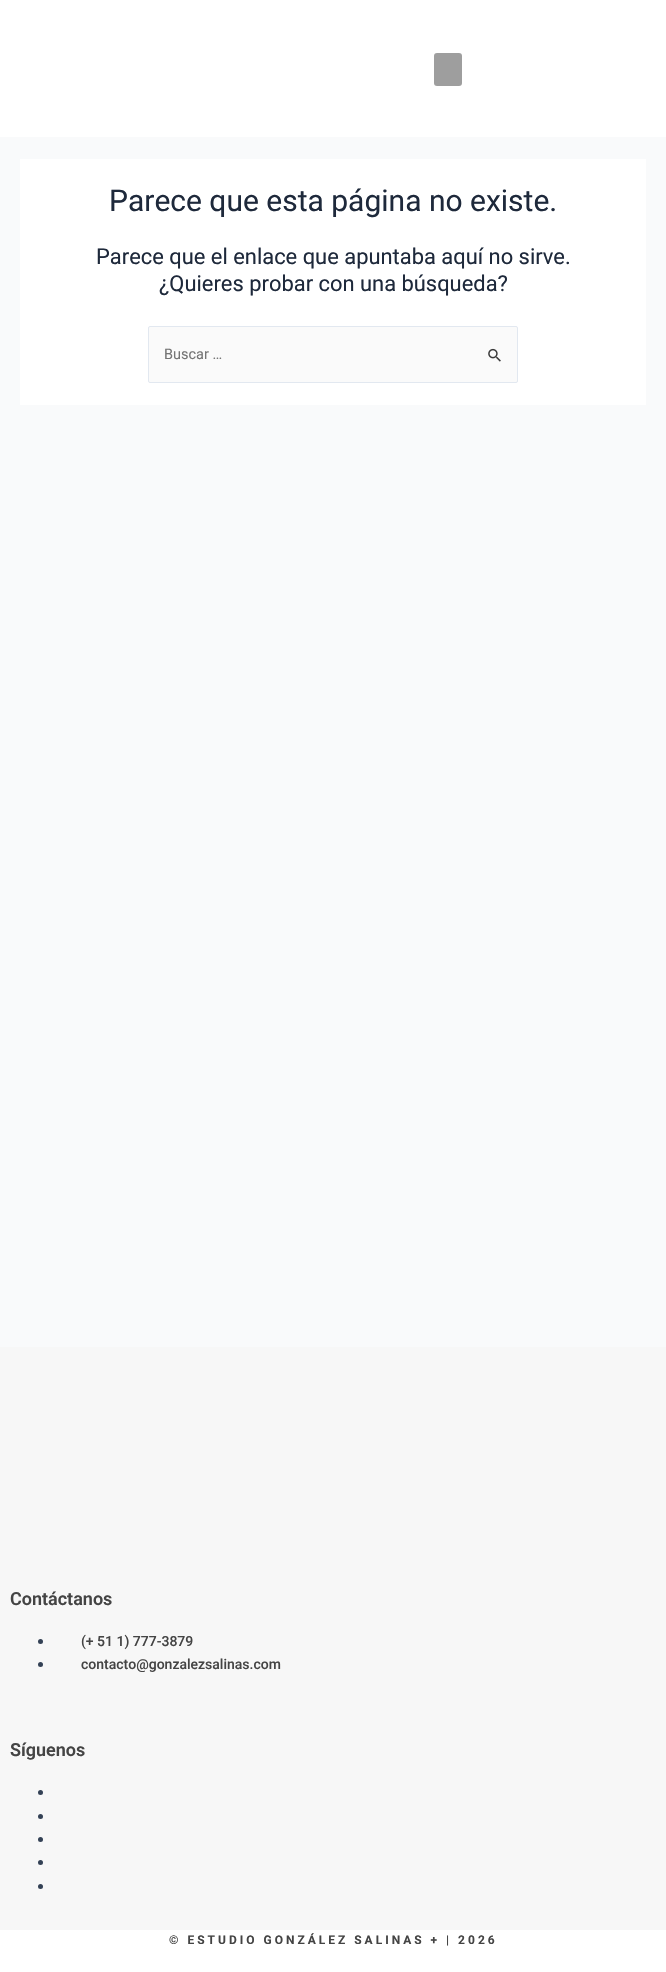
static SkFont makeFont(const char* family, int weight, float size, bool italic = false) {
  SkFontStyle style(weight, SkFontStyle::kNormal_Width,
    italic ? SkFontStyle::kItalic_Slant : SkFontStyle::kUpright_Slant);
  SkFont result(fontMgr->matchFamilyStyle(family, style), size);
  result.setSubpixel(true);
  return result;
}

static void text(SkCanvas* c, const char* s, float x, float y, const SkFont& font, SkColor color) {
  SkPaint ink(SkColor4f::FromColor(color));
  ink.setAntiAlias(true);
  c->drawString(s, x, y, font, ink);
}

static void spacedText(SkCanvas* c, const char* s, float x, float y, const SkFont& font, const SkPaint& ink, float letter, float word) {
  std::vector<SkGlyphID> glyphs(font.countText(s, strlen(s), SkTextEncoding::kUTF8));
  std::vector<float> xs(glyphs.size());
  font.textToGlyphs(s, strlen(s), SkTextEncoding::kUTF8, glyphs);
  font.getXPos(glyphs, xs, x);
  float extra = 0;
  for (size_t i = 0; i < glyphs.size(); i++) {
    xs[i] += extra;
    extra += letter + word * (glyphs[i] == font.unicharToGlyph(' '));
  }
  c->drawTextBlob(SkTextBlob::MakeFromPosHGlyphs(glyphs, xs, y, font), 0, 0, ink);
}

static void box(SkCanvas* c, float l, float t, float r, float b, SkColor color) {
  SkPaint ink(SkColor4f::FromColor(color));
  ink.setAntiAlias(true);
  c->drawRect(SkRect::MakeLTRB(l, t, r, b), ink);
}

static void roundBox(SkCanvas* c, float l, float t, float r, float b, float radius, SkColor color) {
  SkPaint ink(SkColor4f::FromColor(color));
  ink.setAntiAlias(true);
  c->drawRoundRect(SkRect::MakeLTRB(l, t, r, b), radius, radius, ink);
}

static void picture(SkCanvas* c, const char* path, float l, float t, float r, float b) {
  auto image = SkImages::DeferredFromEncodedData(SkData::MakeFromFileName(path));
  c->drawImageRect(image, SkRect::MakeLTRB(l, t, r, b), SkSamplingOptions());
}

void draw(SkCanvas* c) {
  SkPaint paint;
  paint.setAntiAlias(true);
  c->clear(0xfff9fafb);
  box(c, 0, 0, 666, 137, 0xffffffff);
  roundBox(c, 434, 53, 462, 86, 3, 0xff9e9e9e);
  box(c, 20, 159, 646, 405, 0xffffffff);
  SkFont face1 = makeFont("Roboto", 400, 30);
  text(c, "Parece que esta página no existe.", 109, 211, face1, 0xff1e293b);
  SkFont face2 = makeFont("Roboto", 400, 21.9f);
  text(c, "Parece que el enlace que apuntaba aquí no sirve.", 96, 264, face2, 0xff1e293b);
  text(c, "¿Quieres probar con una búsqueda?", 159, 291, face2, 0xff1e293b);
  paint.setColor(0xfffafafa);
  c->drawRoundRect(SkRect::MakeLTRB(148.5f, 326.5f, 517.5f, 382.5f), 1.5f, 1.5f, paint);
  paint.setStyle(SkPaint::kStroke_Style);
  paint.setStrokeWidth(1);
  paint.setColor(0xffe2e8f0);
  c->drawRoundRect(SkRect::MakeLTRB(148.5f, 326.5f, 517.5f, 382.5f), 1.5f, 1.5f, paint);
  SkFont face3 = makeFont("Roboto", 400, 14.5f);
  text(c, "Buscar …", 164, 359, face3, 0xff757575);
  picture(c, "img_01.png", 488, 348, 501, 362);
  box(c, 0, 1347, 666, 1930, 0xfff7f7f7);
  SkFont face4 = makeFont("Roboto", 600, 18);
  text(c, "Contáctanos", 10, 1605, face4, 0xff444444);
  paint.setStyle(SkPaint::kFill_Style);
  paint.setColor(0xff334155);
  c->drawCircle(40.5f, 1641.5f, 2.5f, paint);
  SkFont face5 = makeFont("Roboto", 500, 14);
  text(c, "(+ 51 1) 777-3879", 81, 1646, face5, 0xff444444);
  c->drawCircle(40.5f, 1664.5f, 2.5f, paint);
  text(c, "contacto@gonzalezsalinas.com", 81, 1669, face5, 0xff444444);
  text(c, "Síguenos", 10, 1756, face4, 0xff444444);
  c->drawCircle(40.5f, 1792.5f, 2.5f, paint);
  c->drawCircle(40.5f, 1816.5f, 2.5f, paint);
  c->drawCircle(40.5f, 1839.5f, 2.5f, paint);
  c->drawCircle(40.5f, 1862.5f, 2.5f, paint);
  c->drawCircle(40.5f, 1886.5f, 2.5f, paint);
  box(c, 0, 1930, 666, 1972, 0xffffffff);
  SkFont face6 = makeFont("Roboto", 700, 12);
  paint.setColor(0xff444444);
  spacedText(c, "© ESTUDIO GONZÁLEZ SALINAS + | 2026", 169, 1944, face6, paint, 3, 0);
}
